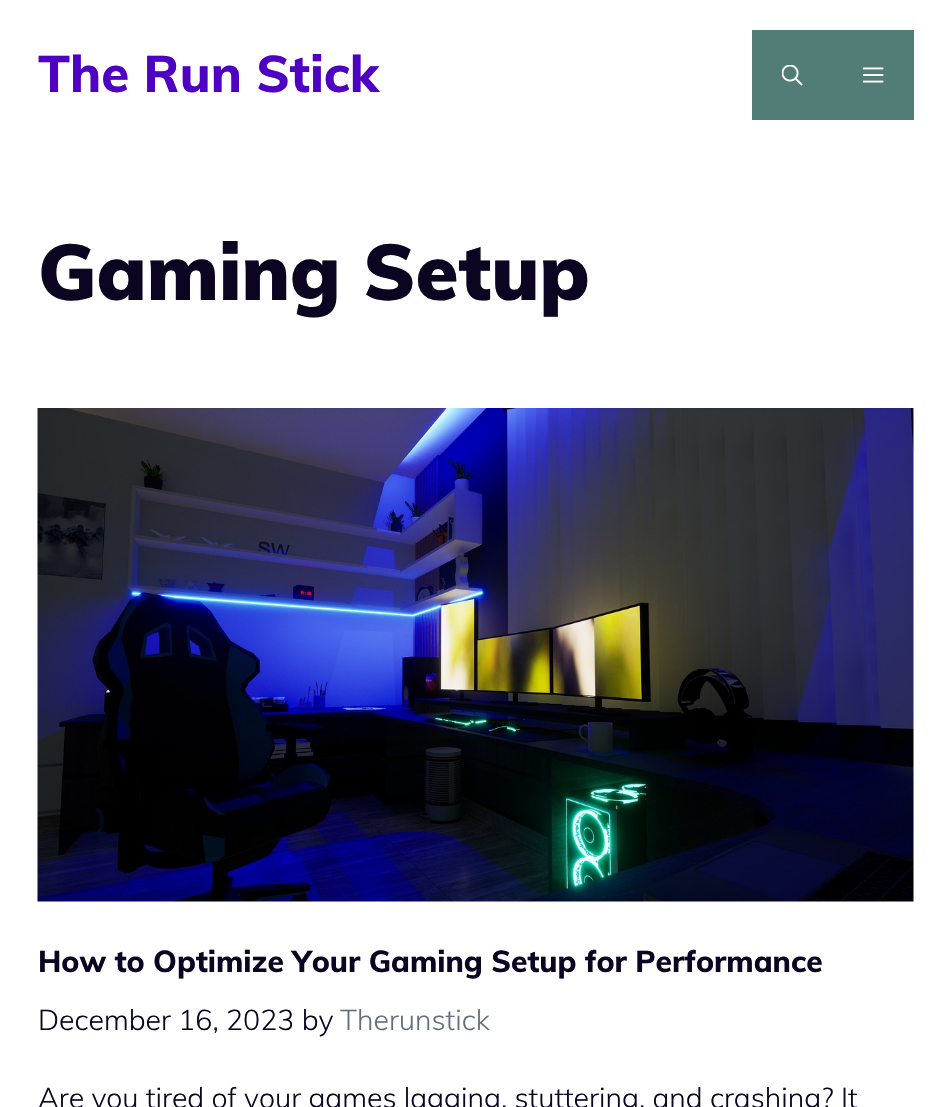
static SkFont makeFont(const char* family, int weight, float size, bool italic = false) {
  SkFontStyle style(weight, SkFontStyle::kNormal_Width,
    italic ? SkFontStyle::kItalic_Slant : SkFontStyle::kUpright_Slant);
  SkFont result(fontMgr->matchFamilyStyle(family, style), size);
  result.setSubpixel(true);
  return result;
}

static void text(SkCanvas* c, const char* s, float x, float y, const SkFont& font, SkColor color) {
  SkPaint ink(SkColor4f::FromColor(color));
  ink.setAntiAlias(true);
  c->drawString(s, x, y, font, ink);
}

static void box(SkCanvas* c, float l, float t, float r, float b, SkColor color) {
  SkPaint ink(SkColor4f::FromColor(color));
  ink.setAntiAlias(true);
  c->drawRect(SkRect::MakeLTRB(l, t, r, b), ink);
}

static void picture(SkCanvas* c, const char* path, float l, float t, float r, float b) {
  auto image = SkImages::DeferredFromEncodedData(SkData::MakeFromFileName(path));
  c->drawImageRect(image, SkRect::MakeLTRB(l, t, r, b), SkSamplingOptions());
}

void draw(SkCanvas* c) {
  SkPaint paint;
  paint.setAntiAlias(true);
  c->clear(0xffffffff);
  SkFont face1 = makeFont("Muli", 800, 51);
  text(c, "The Run Stick", 38, 92, face1, 0xff4e01c2);
  box(c, 752, 30, 914, 120, 0xff527d76);
  picture(c, "img_01.png", 782, 65, 803, 86);
  picture(c, "img_02.png", 863, 67, 884, 83);
  SkFont face2 = makeFont("Muli", 900, 78);
  text(c, "Gaming Setup", 38, 300, face2, 0xff0b0521);
  picture(c, "img_03.png", 37, 408, 914, 902);
  SkFont face3 = makeFont("Muli", 800, 30);
  text(c, "How to Optimize Your Gaming Setup for Performance", 38, 972, face3, 0xff0b0521);
  SkFont face4 = makeFont("Muli", 300, 28.5f);
  text(c, "December 16, 2023 by", 38, 1030, face4, 0xff0b0521);
  text(c, "Therunstick", 340, 1030, face4, 0xff62707c);
  text(c, "Are you tired of your games lagging, stuttering, and crashing? It", 38, 1108, face4, 0xff0b0521);
}
